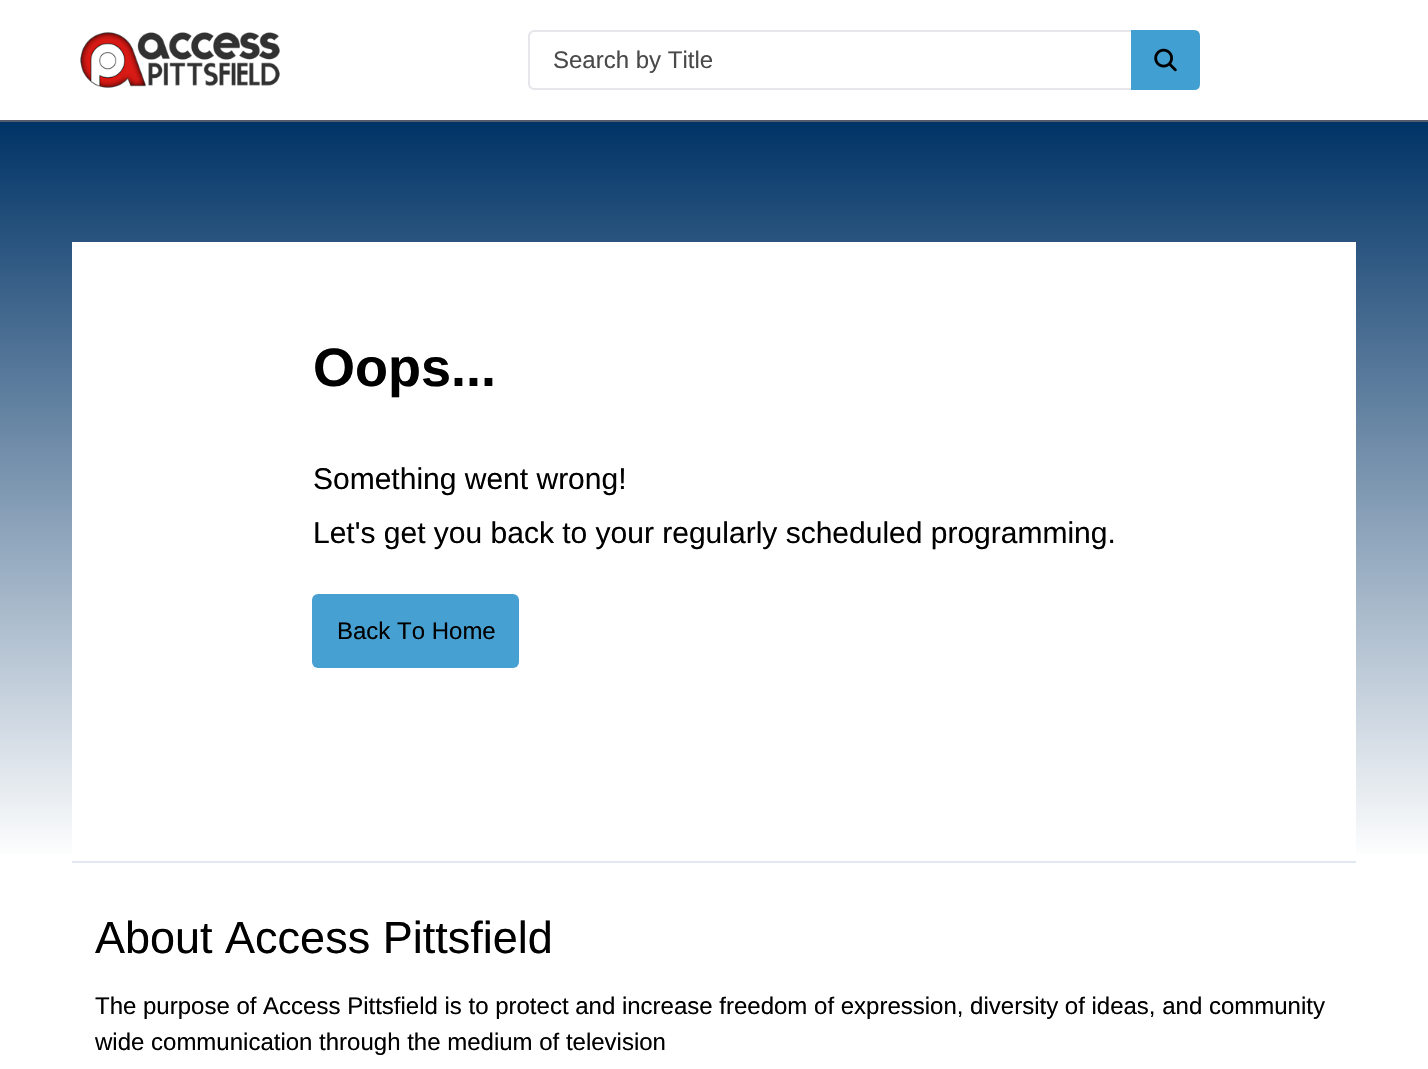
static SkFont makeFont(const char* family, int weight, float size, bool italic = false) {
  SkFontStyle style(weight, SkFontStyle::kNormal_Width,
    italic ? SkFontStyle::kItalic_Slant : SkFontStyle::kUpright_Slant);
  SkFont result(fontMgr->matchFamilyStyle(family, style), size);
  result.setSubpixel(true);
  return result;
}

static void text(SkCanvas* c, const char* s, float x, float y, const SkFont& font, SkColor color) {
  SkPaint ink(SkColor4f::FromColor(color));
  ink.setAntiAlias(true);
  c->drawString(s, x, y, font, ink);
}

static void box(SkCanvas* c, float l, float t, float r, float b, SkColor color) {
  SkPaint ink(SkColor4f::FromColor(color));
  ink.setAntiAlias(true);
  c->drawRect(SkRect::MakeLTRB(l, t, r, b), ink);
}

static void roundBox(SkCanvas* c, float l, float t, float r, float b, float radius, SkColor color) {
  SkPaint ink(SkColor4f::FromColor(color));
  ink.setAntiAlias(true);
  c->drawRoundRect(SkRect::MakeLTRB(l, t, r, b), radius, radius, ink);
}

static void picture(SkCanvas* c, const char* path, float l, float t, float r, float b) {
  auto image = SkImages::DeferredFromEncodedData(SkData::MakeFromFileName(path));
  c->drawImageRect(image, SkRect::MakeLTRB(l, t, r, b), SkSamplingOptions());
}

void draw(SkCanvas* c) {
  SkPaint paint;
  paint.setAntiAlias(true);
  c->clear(0xffffffff);
  box(c, 0, 120, 1428, 122, 0xff545c6e);
  picture(c, "img_01.png", 80, 32, 280, 88);
  paint.setColor(0xffe5e7eb);
  c->drawPath(SkPathBuilder(SkPathFillType::kEvenOdd).moveTo(534, 30).lineTo(1131, 30).lineTo(1131, 90).lineTo(534, 90).cubicTo(531, 90, 528, 87, 528, 84).lineTo(528, 36).cubicTo(528, 33, 531, 30, 534, 30).close().moveTo(534, 32).lineTo(1131, 32).lineTo(1131, 88).lineTo(534, 88).cubicTo(532, 88, 530, 86, 530, 84).lineTo(530, 36).cubicTo(530, 34, 532, 32, 534, 32).close().detach(), paint);
  SkFont face1 = makeFont("Liberation Sans", 400, 24);
  text(c, "Search by Title", 553, 68, face1, 0xff4a4a4a);
  paint.setColor(0xff429fd1);
  c->drawPath(SkPathBuilder().moveTo(1132, 31).lineTo(1194, 31).cubicTo(1197, 31, 1199, 33, 1199, 36).lineTo(1199, 84).cubicTo(1199, 87, 1197, 89, 1194, 89).lineTo(1132, 89).close().detach(), paint);
  paint.setStyle(SkPaint::kStroke_Style);
  paint.setStrokeWidth(2);
  c->drawPath(SkPathBuilder().moveTo(1132, 31).lineTo(1194, 31).cubicTo(1197, 31, 1199, 33, 1199, 36).lineTo(1199, 84).cubicTo(1199, 87, 1197, 89, 1194, 89).lineTo(1132, 89).close().detach(), paint);
  picture(c, "img_02.png", 1154, 48, 1177, 72);
  paint.setStyle(SkPaint::kFill_Style);
  {
    const SkColor colors[] = {0xff003366, 0xffffffff};
    const float stops[] = {0, 1};
    const SkPoint ends[] = {{714, 121}, {714, 861}};
    paint.setShader(SkGradientShader::MakeLinear(ends, colors, stops, 2, SkTileMode::kClamp));
    paint.setAlpha(255);
  }
  c->drawRect(SkRect::MakeLTRB(0, 122, 1428, 854), paint);
  box(c, 72, 242, 1356, 854, 0xffffffff);
  SkFont face2 = makeFont("Liberation Sans", 700, 54);
  text(c, "Oops...", 313, 386, face2, 0xff000000);
  SkFont face3 = makeFont("Liberation Sans", 400, 30);
  text(c, "Something went wrong!", 313, 489, face3, 0xff000000);
  text(c, "Let's get you back to your regularly scheduled programming.", 313, 543, face3, 0xff000000);
  roundBox(c, 312, 594, 519, 668, 6, 0xff46a1d2);
  text(c, "Back To Home", 337, 639, face1, 0xff000000);
  box(c, 72, 861, 1356, 863, 0xffe2e8f0);
  SkFont face4 = makeFont("Liberation Sans", 400, 45);
  text(c, "About Access Pittsfield", 95, 953, face4, 0xff000000);
  text(c, "The purpose of Access Pittsfield is to protect and increase freedom of expression, diversity of ideas, and community", 95, 1014, face1, 0xff000000);
  text(c, "wide communication through the medium of television", 95, 1050, face1, 0xff000000);
}
